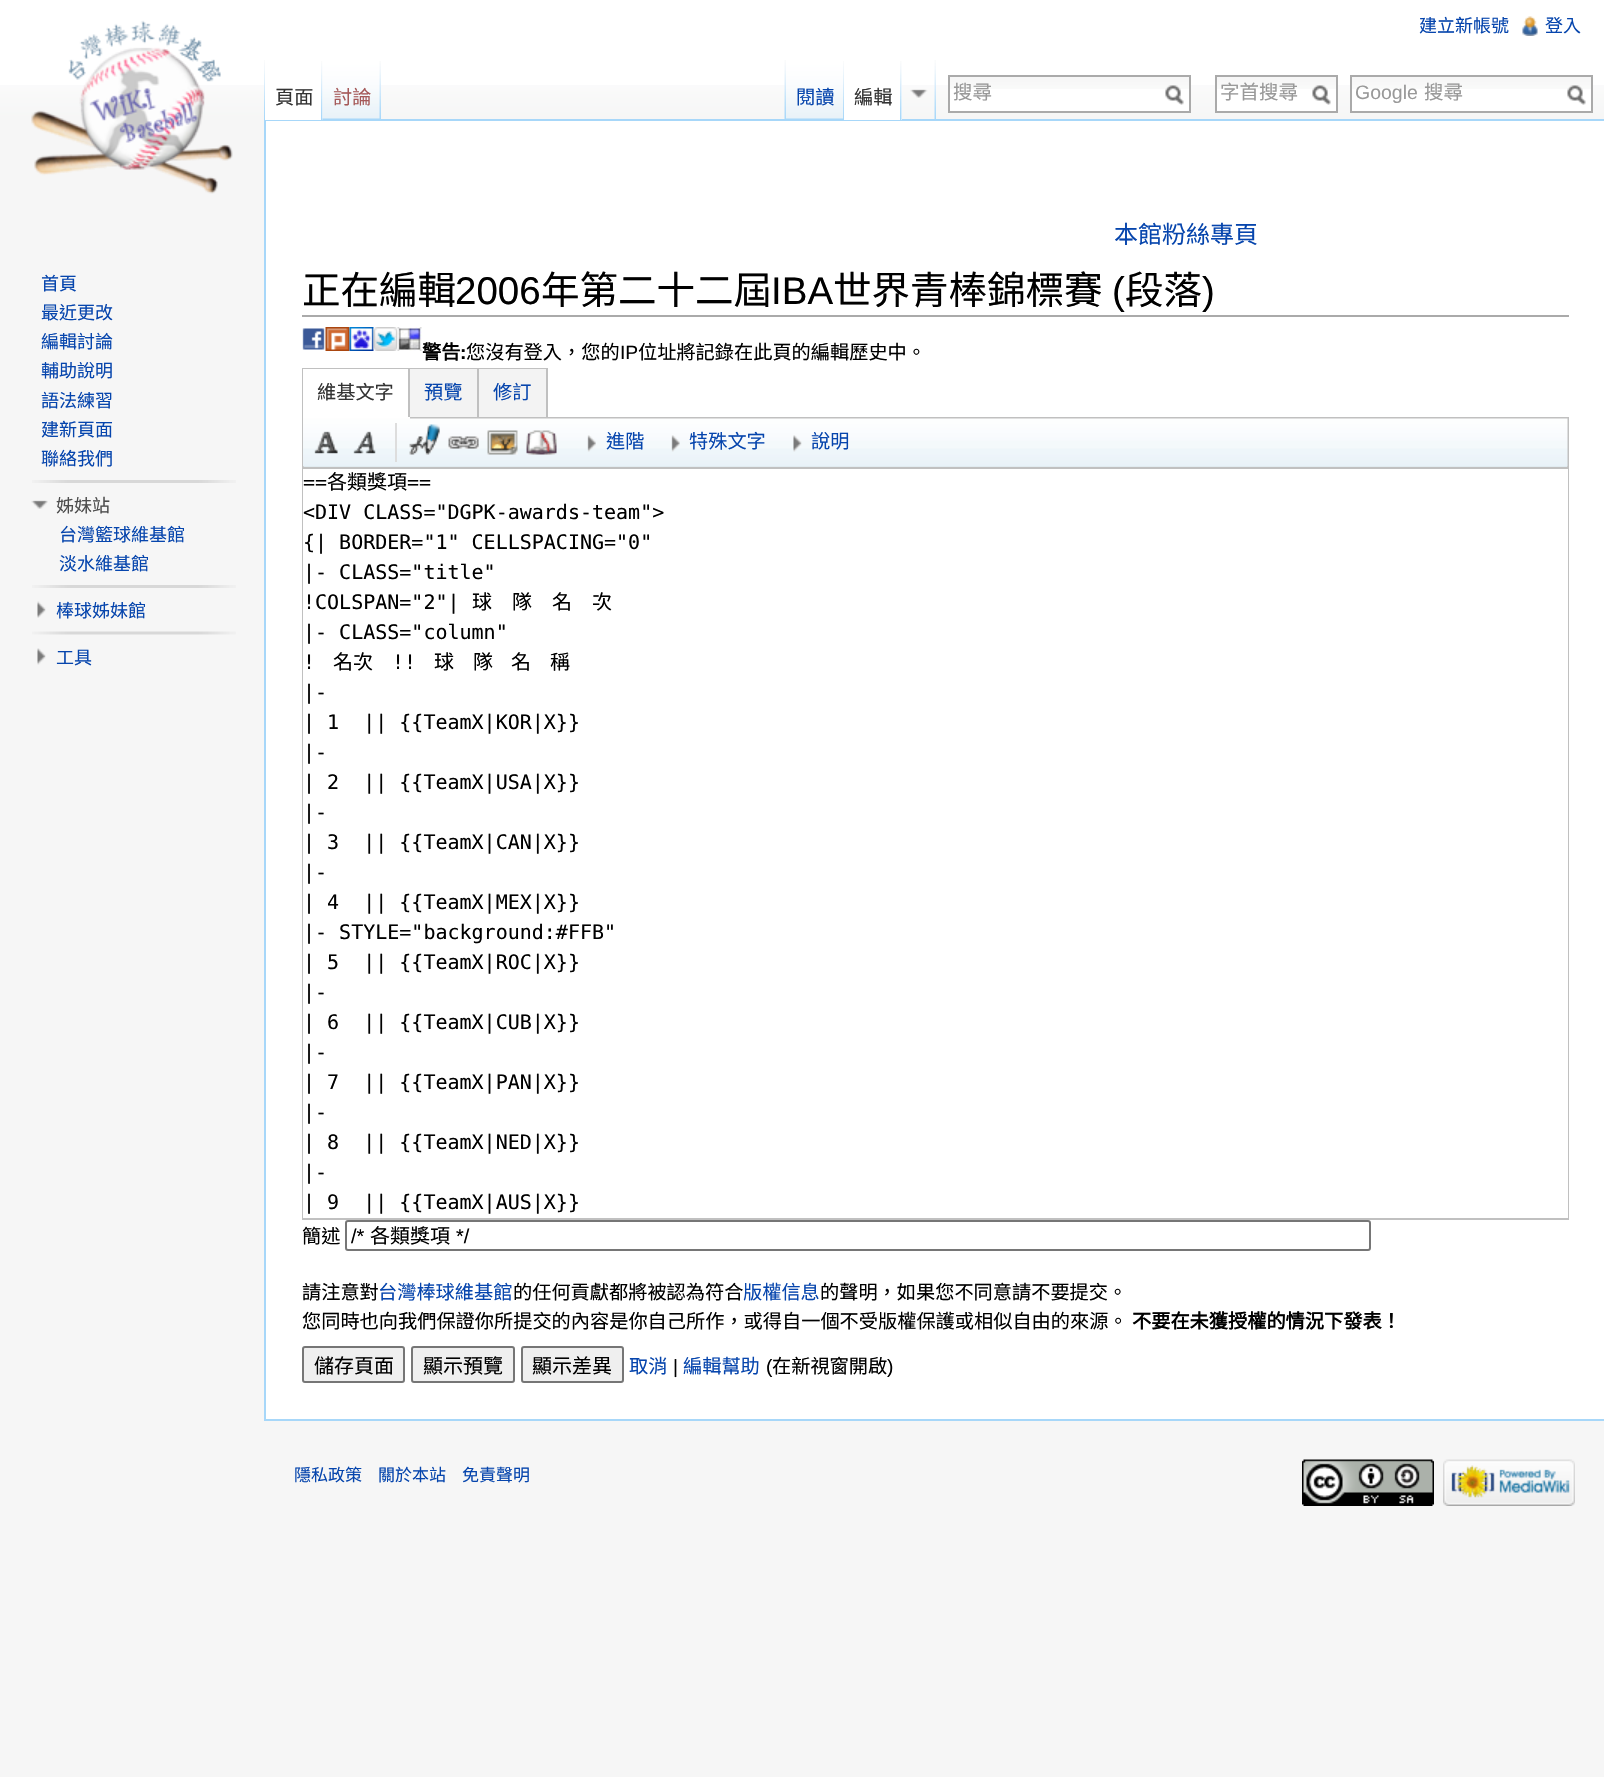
static SkFont makeFont(const char* family, int weight, float size, bool italic = false) {
  SkFontStyle style(weight, SkFontStyle::kNormal_Width,
    italic ? SkFontStyle::kItalic_Slant : SkFontStyle::kUpright_Slant);
  SkFont result(fontMgr->matchFamilyStyle(family, style), size);
  result.setSubpixel(true);
  return result;
}

static void text(SkCanvas* c, const char* s, float x, float y, const SkFont& font, SkColor color) {
  SkPaint ink(SkColor4f::FromColor(color));
  ink.setAntiAlias(true);
  c->drawString(s, x, y, font, ink);
}

static void box(SkCanvas* c, float l, float t, float r, float b, SkColor color) {
  SkPaint ink(SkColor4f::FromColor(color));
  ink.setAntiAlias(true);
  c->drawRect(SkRect::MakeLTRB(l, t, r, b), ink);
}

static void picture(SkCanvas* c, const char* path, float l, float t, float r, float b) {
  auto image = SkImages::DeferredFromEncodedData(SkData::MakeFromFileName(path));
  c->drawImageRect(image, SkRect::MakeLTRB(l, t, r, b), SkSamplingOptions());
}

void draw(SkCanvas* c) {
  SkPaint paint;
  paint.setAntiAlias(true);
  c->clear(0xfff6f6f6);
  box(c, 0, 0, 1604, 85, 0xffffffff);
  picture(c, "img_01.png", 0, 85, 1604, 120);
  SkFont face1 = makeFont("Noto Sans CJK TC", 400, 18);
  text(c, "建立新帳號", 1419, 32, face1, 0xff0645ad);
  picture(c, "img_02.png", 1522, 16, 1538, 36);
  text(c, "登入", 1545, 32, face1, 0xff0645ad);
  picture(c, "img_03.png", 264, 60, 265, 119);
  box(c, 264, 119, 1604, 121, 0xffa7d7f9);
  box(c, 264, 1419, 1604, 1421, 0xffa7d7f9);
  box(c, 264, 119, 266, 1421, 0xffa7d7f9);
  box(c, 265, 85, 323, 120, 0xffffffff);
  picture(c, "img_04.png", 321, 61, 323, 120);
  SkFont face2 = makeFont("Noto Sans CJK TC", 400, 19.2f);
  text(c, "頁面", 275, 104, face2, 0xff333333);
  picture(c, "img_05.png", 322, 60, 381, 120);
  picture(c, "img_06.png", 379, 61, 381, 119);
  text(c, "討論", 333, 104, face2, 0xffa55858);
  picture(c, "img_07.png", 784, 60, 786, 119);
  picture(c, "img_08.png", 786, 60, 844, 120);
  picture(c, "img_09.png", 843, 61, 844, 120);
  text(c, "閱讀", 796, 104, face2, 0xff0645ad);
  box(c, 844, 85, 902, 120, 0xffffffff);
  picture(c, "img_04.png", 900, 61, 902, 120);
  text(c, "編輯", 854, 104, face2, 0xff333333);
  picture(c, "img_10.png", 910, 89, 928, 98);
  picture(c, "img_11.png", 934, 60, 936, 119);
  box(c, 950, 89, 1189, 111, 0xffffffff);
  picture(c, "img_12.png", 950, 77, 1189, 89);
  paint.setStyle(SkPaint::kStroke_Style);
  paint.setStrokeWidth(2);
  paint.setColor(0xffaaaaaa);
  c->drawRect(SkRect::MakeLTRB(949, 76, 1190, 112), paint);
  SkFont face3 = makeFont("Noto Sans CJK TC", 400, 19.5f);
  text(c, "搜尋", 953, 99, face3, 0xff999999);
  picture(c, "img_13.png", 1165, 85, 1184, 105);
  box(c, 1217, 89, 1336, 111, 0xffffffff);
  picture(c, "img_14.png", 1217, 77, 1336, 89);
  c->drawRect(SkRect::MakeLTRB(1216, 76, 1337, 112), paint);
  text(c, "字首搜尋", 1220, 99, face3, 0xff999999);
  picture(c, "img_13.png", 1312, 85, 1331, 105);
  box(c, 1352, 89, 1591, 111, 0xffffffff);
  picture(c, "img_12.png", 1352, 77, 1591, 89);
  c->drawRect(SkRect::MakeLTRB(1351, 76, 1592, 112), paint);
  SkFont face4 = makeFont("Liberation Sans", 400, 19.5f);
  text(c, "Google", 1355, 99, face4, 0xff999999);
  text(c, "搜尋", 1424, 99, face3, 0xff999999);
  picture(c, "img_15.png", 1567, 85, 1586, 105);
  picture(c, "img_16.png", 31, 20, 233, 194);
  text(c, "首頁", 41, 290, face1, 0xff0645ad);
  text(c, "最近更改", 41, 319, face1, 0xff0645ad);
  text(c, "編輯討論", 41, 348, face1, 0xff0645ad);
  text(c, "輔助說明", 41, 377, face1, 0xff0645ad);
  text(c, "語法練習", 41, 407, face1, 0xff0645ad);
  text(c, "建新頁面", 41, 436, face1, 0xff0645ad);
  text(c, "聯絡我們", 41, 465, face1, 0xff0645ad);
  picture(c, "img_17.png", 32, 480, 236, 483);
  picture(c, "img_18.png", 31, 500, 48, 509);
  text(c, "姊妹站", 56, 512, face1, 0xff4d4d4d);
  text(c, "台灣籃球維基館", 59, 541, face1, 0xff0645ad);
  text(c, "淡水維基館", 59, 570, face1, 0xff0645ad);
  picture(c, "img_17.png", 32, 585, 236, 588);
  picture(c, "img_19.png", 37, 601, 46, 618);
  text(c, "棒球姊妹館", 56, 617, face1, 0xff0645ad);
  picture(c, "img_20.png", 32, 631, 236, 635);
  picture(c, "img_21.png", 37, 648, 46, 665);
  text(c, "工具", 56, 664, face1, 0xff0645ad);
  box(c, 266, 121, 1604, 1419, 0xffffffff);
  SkFont face5 = makeFont("Noto Sans CJK TC", 400, 24);
  text(c, "本館粉絲專頁", 1114, 243, face5, 0xff0645ad);
  box(c, 302, 315, 1569, 317, 0xffaaaaaa);
  SkFont face6 = makeFont("Noto Sans CJK TC", 400, 38.5f);
  text(c, "正在編輯", 302, 304, face6, 0xff000000);
  SkFont face7 = makeFont("Liberation Sans", 400, 38.5f);
  text(c, "2006", 455, 304, face7, 0xff000000);
  text(c, "年第二十二屆", 541, 304, face6, 0xff000000);
  text(c, "IBA", 771, 304, face7, 0xff000000);
  text(c, "世界青棒錦標賽", 833, 304, face6, 0xff000000);
  text(c, "(", 1112, 304, face7, 0xff000000);
  text(c, "段落", 1125, 304, face6, 0xff000000);
  text(c, ")", 1202, 304, face7, 0xff000000);
  picture(c, "img_22.png", 302, 328, 325, 350);
  picture(c, "img_23.png", 325, 327, 350, 351);
  picture(c, "img_24.png", 349, 327, 374, 351);
  picture(c, "img_25.png", 373, 327, 398, 351);
  picture(c, "img_26.png", 397, 327, 422, 351);
  SkFont face8 = makeFont("Noto Sans CJK TC", 700, 19.2f);
  text(c, "警告", 422, 359, face8, 0xff000000);
  SkFont face9 = makeFont("Liberation Sans", 700, 19.2f);
  text(c, ":", 460, 359, face9, 0xff000000);
  text(c, "您沒有登入，您的", 466, 359, face2, 0xff000000);
  SkFont face10 = makeFont("Liberation Sans", 400, 19.2f);
  text(c, "IP", 620, 359, face10, 0xff000000);
  text(c, "位址將記錄在此頁的編輯歷史中。", 638, 359, face2, 0xff000000);
  box(c, 304, 466, 1567, 467, 0xffe0eef7);
  paint.setColor(0xffc0c0c0);
  c->drawRect(SkRect::MakeLTRB(303, 369, 1568, 1219), paint);
  box(c, 548, 368, 1550, 370, 0xffffffff);
  box(c, 548, 417, 1568, 419, 0xffc0c0c0);
  box(c, 303, 369, 408, 417, 0xffffffff);
  box(c, 408, 369, 410, 419, 0xffc0c0c0);
  box(c, 303, 417, 410, 419, 0xffffffff);
  text(c, "維基文字", 317, 399, face2, 0xff333333);
  box(c, 410, 369, 477, 417, 0xfff3f3f3);
  box(c, 477, 369, 479, 419, 0xffc0c0c0);
  box(c, 410, 417, 479, 419, 0xffc0c0c0);
  text(c, "預覽", 424, 399, face2, 0xff0645ad);
  box(c, 479, 369, 546, 417, 0xfff3f3f3);
  box(c, 546, 369, 548, 419, 0xffc0c0c0);
  box(c, 479, 417, 548, 419, 0xffc0c0c0);
  text(c, "修訂", 493, 399, face2, 0xff0645ad);
  box(c, 1550, 368, 1569, 417, 0xffffffff);
  box(c, 303, 467, 1568, 469, 0xffc0c0c0);
  picture(c, "img_27.png", 303, 418, 1568, 467);
  box(c, 395, 423, 397, 462, 0xffdddddd);
  picture(c, "img_28.png", 314, 431, 338, 454);
  picture(c, "img_29.png", 353, 431, 376, 454);
  picture(c, "img_30.png", 409, 424, 440, 455);
  picture(c, "img_31.png", 448, 436, 479, 449);
  picture(c, "img_32.png", 487, 430, 518, 455);
  picture(c, "img_33.png", 526, 430, 557, 455);
  picture(c, "img_34.png", 587, 435, 596, 452);
  text(c, "進階", 606, 448, face2, 0xff0645ad);
  picture(c, "img_35.png", 671, 435, 680, 452);
  text(c, "特殊文字", 689, 448, face2, 0xff0645ad);
  picture(c, "img_36.png", 793, 435, 802, 452);
  text(c, "說明", 811, 448, face2, 0xff0645ad);
  box(c, 303, 469, 1568, 1218, 0xffffffff);
  SkFont face11 = makeFont("DejaVu Sans Mono", 400, 20);
  text(c, "==", 303, 489, face11, 0xff000000);
  SkFont face12 = makeFont("Noto Sans CJK TC", 400, 20);
  text(c, "各類獎項", 327, 489, face12, 0xff000000);
  text(c, "==", 407, 489, face11, 0xff000000);
  text(c, "<DIV CLASS=\"DGPK-awards-team\">", 303, 519, face11, 0xff000000);
  text(c, "{| BORDER=\"1\" CELLSPACING=\"0\"", 303, 549, face11, 0xff000000);
  text(c, "|- CLASS=\"title\"", 303, 579, face11, 0xff000000);
  text(c, "!COLSPAN=\"2\"|", 303, 609, face11, 0xff000000);
  text(c, "球　隊　名　次", 472, 609, face12, 0xff000000);
  text(c, "|- CLASS=\"column\"", 303, 639, face11, 0xff000000);
  text(c, "!", 303, 669, face11, 0xff000000);
  text(c, "名次", 333, 669, face12, 0xff000000);
  text(c, "!!", 392, 669, face11, 0xff000000);
  text(c, "球", 434, 669, face12, 0xff000000);
  text(c, "隊", 473, 669, face12, 0xff000000);
  text(c, "名", 511, 669, face12, 0xff000000);
  text(c, "稱", 550, 669, face12, 0xff000000);
  text(c, "|-", 303, 699, face11, 0xff000000);
  text(c, "| 1  || {{TeamX|KOR|X}}", 303, 729, face11, 0xff000000);
  text(c, "|-", 303, 759, face11, 0xff000000);
  text(c, "| 2  || {{TeamX|USA|X}}", 303, 789, face11, 0xff000000);
  text(c, "|-", 303, 819, face11, 0xff000000);
  text(c, "| 3  || {{TeamX|CAN|X}}", 303, 849, face11, 0xff000000);
  text(c, "|-", 303, 879, face11, 0xff000000);
  text(c, "| 4  || {{TeamX|MEX|X}}", 303, 909, face11, 0xff000000);
  text(c, "|- STYLE=\"background:#FFB\"", 303, 939, face11, 0xff000000);
  text(c, "| 5  || {{TeamX|ROC|X}}", 303, 969, face11, 0xff000000);
  text(c, "|-", 303, 999, face11, 0xff000000);
  text(c, "| 6  || {{TeamX|CUB|X}}", 303, 1029, face11, 0xff000000);
  text(c, "|-", 303, 1059, face11, 0xff000000);
  text(c, "| 7  || {{TeamX|PAN|X}}", 303, 1089, face11, 0xff000000);
  text(c, "|-", 303, 1119, face11, 0xff000000);
  text(c, "| 8  || {{TeamX|NED|X}}", 303, 1149, face11, 0xff000000);
  text(c, "|-", 303, 1179, face11, 0xff000000);
  text(c, "| 9  || {{TeamX|AUS|X}}", 303, 1209, face11, 0xff000000);
  text(c, "簡述", 302, 1243, face2, 0xff000000);
  paint.setColor(0xff767676);
  c->drawRoundRect(SkRect::MakeLTRB(346, 1221, 1370, 1250), 2, 2, paint);
  SkFont face13 = makeFont("Liberation Sans", 400, 20);
  text(c, "/*", 351, 1243, face13, 0xff000000);
  text(c, "各類獎項", 370, 1243, face12, 0xff000000);
  text(c, "*/", 456, 1243, face13, 0xff000000);
  text(c, "請注意對", 302, 1299, face2, 0xff000000);
  text(c, "台灣棒球維基館", 378, 1299, face2, 0xff0645ad);
  text(c, "的任何貢獻都將被認為符合", 513, 1299, face2, 0xff000000);
  text(c, "版權信息", 743, 1299, face2, 0xff0645ad);
  text(c, "的聲明，如果您不同意請不要提交。", 820, 1299, face2, 0xff000000);
  text(c, "您同時也向我們保證你所提交的內容是你自己所作，或得自一個不受版權保護或相似自由的來源。", 302, 1328, face2, 0xff000000);
  text(c, "不要在未獲授權的情況下發表！", 1132, 1328, face8, 0xff000000);
  paint.setStyle(SkPaint::kFill_Style);
  paint.setColor(0xffefefef);
  c->drawRoundRect(SkRect::MakeLTRB(303, 1347, 404, 1382), 2, 2, paint);
  paint.setStyle(SkPaint::kStroke_Style);
  paint.setColor(0xff767676);
  c->drawRoundRect(SkRect::MakeLTRB(303, 1347, 404, 1382), 2, 2, paint);
  text(c, "儲存頁面", 314, 1373, face12, 0xff000000);
  paint.setStyle(SkPaint::kFill_Style);
  paint.setColor(0xffefefef);
  c->drawRoundRect(SkRect::MakeLTRB(412, 1347, 514, 1382), 2, 2, paint);
  paint.setStyle(SkPaint::kStroke_Style);
  paint.setColor(0xff767676);
  c->drawRoundRect(SkRect::MakeLTRB(412, 1347, 514, 1382), 2, 2, paint);
  text(c, "顯示預覽", 423, 1373, face12, 0xff000000);
  paint.setStyle(SkPaint::kFill_Style);
  paint.setColor(0xffefefef);
  c->drawRoundRect(SkRect::MakeLTRB(522, 1347, 623, 1382), 2, 2, paint);
  paint.setStyle(SkPaint::kStroke_Style);
  paint.setColor(0xff767676);
  c->drawRoundRect(SkRect::MakeLTRB(522, 1347, 623, 1382), 2, 2, paint);
  text(c, "顯示差異", 532, 1373, face12, 0xff000000);
  text(c, "取消", 629, 1373, face2, 0xff0645ad);
  text(c, "|", 673, 1373, face10, 0xff000000);
  text(c, "編輯幫助", 683, 1373, face2, 0xff0645ad);
  text(c, "(", 766, 1373, face10, 0xff000000);
  text(c, "在新視窗開啟", 772, 1373, face2, 0xff000000);
  text(c, ")", 887, 1373, face10, 0xff000000);
  SkFont face14 = makeFont("Noto Sans CJK TC", 400, 17);
  text(c, "隱私政策", 294, 1481, face14, 0xff0645ad);
  text(c, "關於本站", 378, 1481, face14, 0xff0645ad);
  text(c, "免責聲明", 462, 1481, face14, 0xff0645ad);
  picture(c, "img_37.png", 1302, 1459, 1434, 1506);
  picture(c, "img_38.png", 1443, 1459, 1575, 1506);
}
